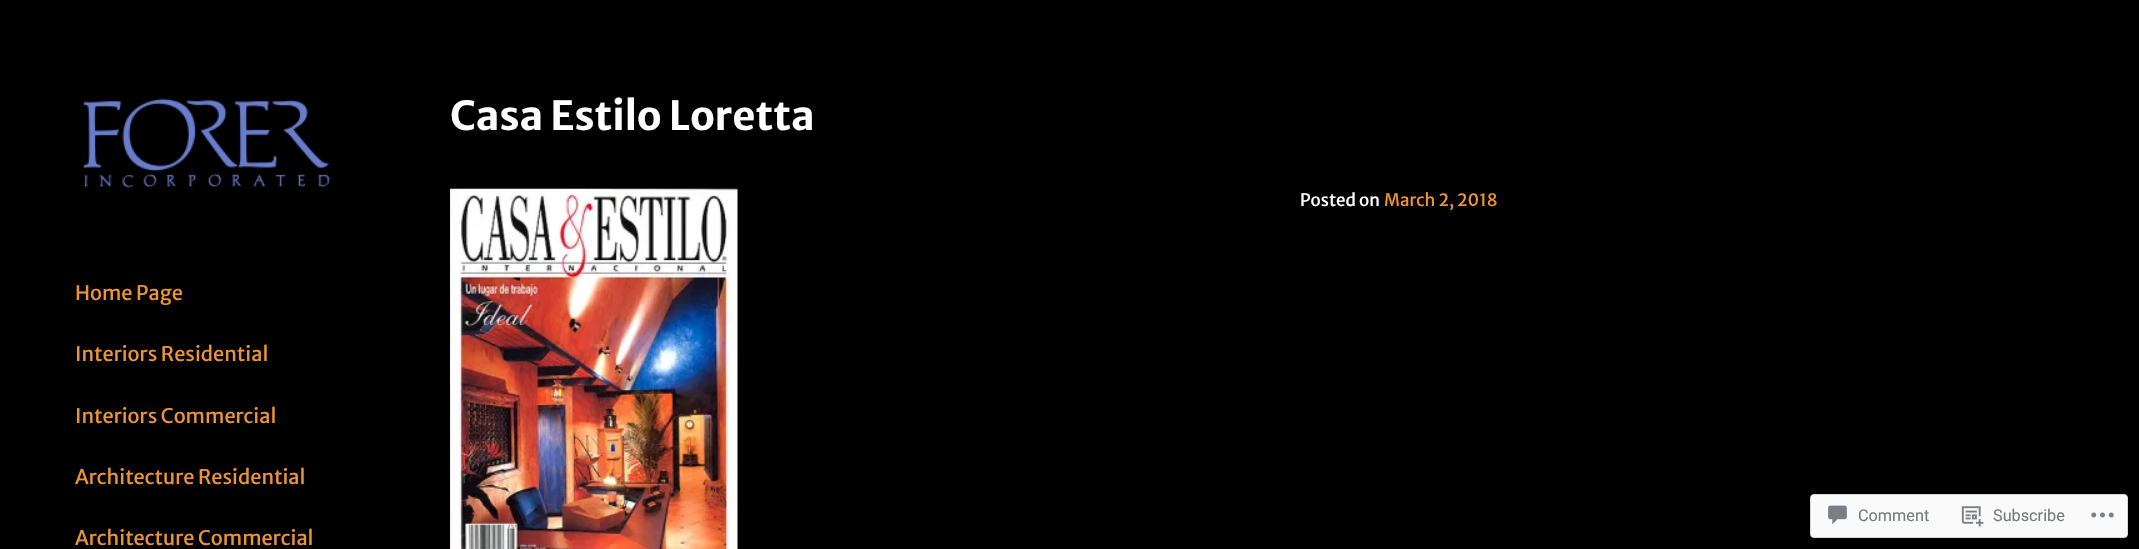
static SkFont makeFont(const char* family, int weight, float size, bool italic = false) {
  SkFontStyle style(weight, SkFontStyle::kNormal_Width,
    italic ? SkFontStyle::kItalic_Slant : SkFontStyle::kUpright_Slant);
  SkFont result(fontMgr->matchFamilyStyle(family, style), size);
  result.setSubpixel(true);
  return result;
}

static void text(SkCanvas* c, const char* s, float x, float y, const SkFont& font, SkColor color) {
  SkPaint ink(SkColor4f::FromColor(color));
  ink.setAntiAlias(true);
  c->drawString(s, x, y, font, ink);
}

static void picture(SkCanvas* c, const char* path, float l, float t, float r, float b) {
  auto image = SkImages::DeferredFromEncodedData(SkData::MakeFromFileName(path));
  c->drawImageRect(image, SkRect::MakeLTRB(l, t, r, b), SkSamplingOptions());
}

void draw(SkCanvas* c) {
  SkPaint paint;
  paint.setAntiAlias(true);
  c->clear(0xff000000);
  SkFont face1 = makeFont("Merriweather Sans", 700, 40);
  text(c, "Casa Estilo Loretta", 450, 130, face1, 0xffffffff);
  picture(c, "img_01.png", 450, 188, 738, 549);
  SkFont face2 = makeFont("Merriweather Sans", 400, 17);
  text(c, "Posted on", 1300, 206, face2, 0xffffffff);
  text(c, "March 2, 2018", 1384, 206, face2, 0xffed9435);
  picture(c, "img_02.png", 82, 97, 332, 189);
  SkFont face3 = makeFont("Merriweather Sans", 400, 20);
  text(c, "Home Page", 75, 300, face3, 0xffed9435);
  text(c, "Interiors Residential", 75, 361, face3, 0xffed9435);
  text(c, "Interiors Commercial", 75, 423, face3, 0xffed9435);
  text(c, "Architecture Residential", 75, 484, face3, 0xffed9435);
  text(c, "Architecture Commercial", 75, 545, face3, 0xffed9435);
  paint.setColor(0xfffafafa);
  c->drawRoundRect(SkRect::MakeLTRB(1810.5f, 494.5f, 2127.5f, 537.5f), 3.5f, 3.5f, paint);
  paint.setStyle(SkPaint::kStroke_Style);
  paint.setStrokeWidth(1);
  paint.setColor(0xffd8d8da);
  c->drawRoundRect(SkRect::MakeLTRB(1810.5f, 494.5f, 2127.5f, 537.5f), 3.5f, 3.5f, paint);
  picture(c, "img_03.png", 1828, 505, 1847, 525);
  SkFont face4 = makeFont("Roboto", 400, 16.25f);
  text(c, "Comment", 1858, 521, face4, 0xff767a7f);
  picture(c, "img_04.png", 1961, 506, 1984, 527);
  text(c, "Subscribe", 1993, 521, face4, 0xff767a7f);
  picture(c, "img_05.png", 2091, 512, 2114, 518);
}
